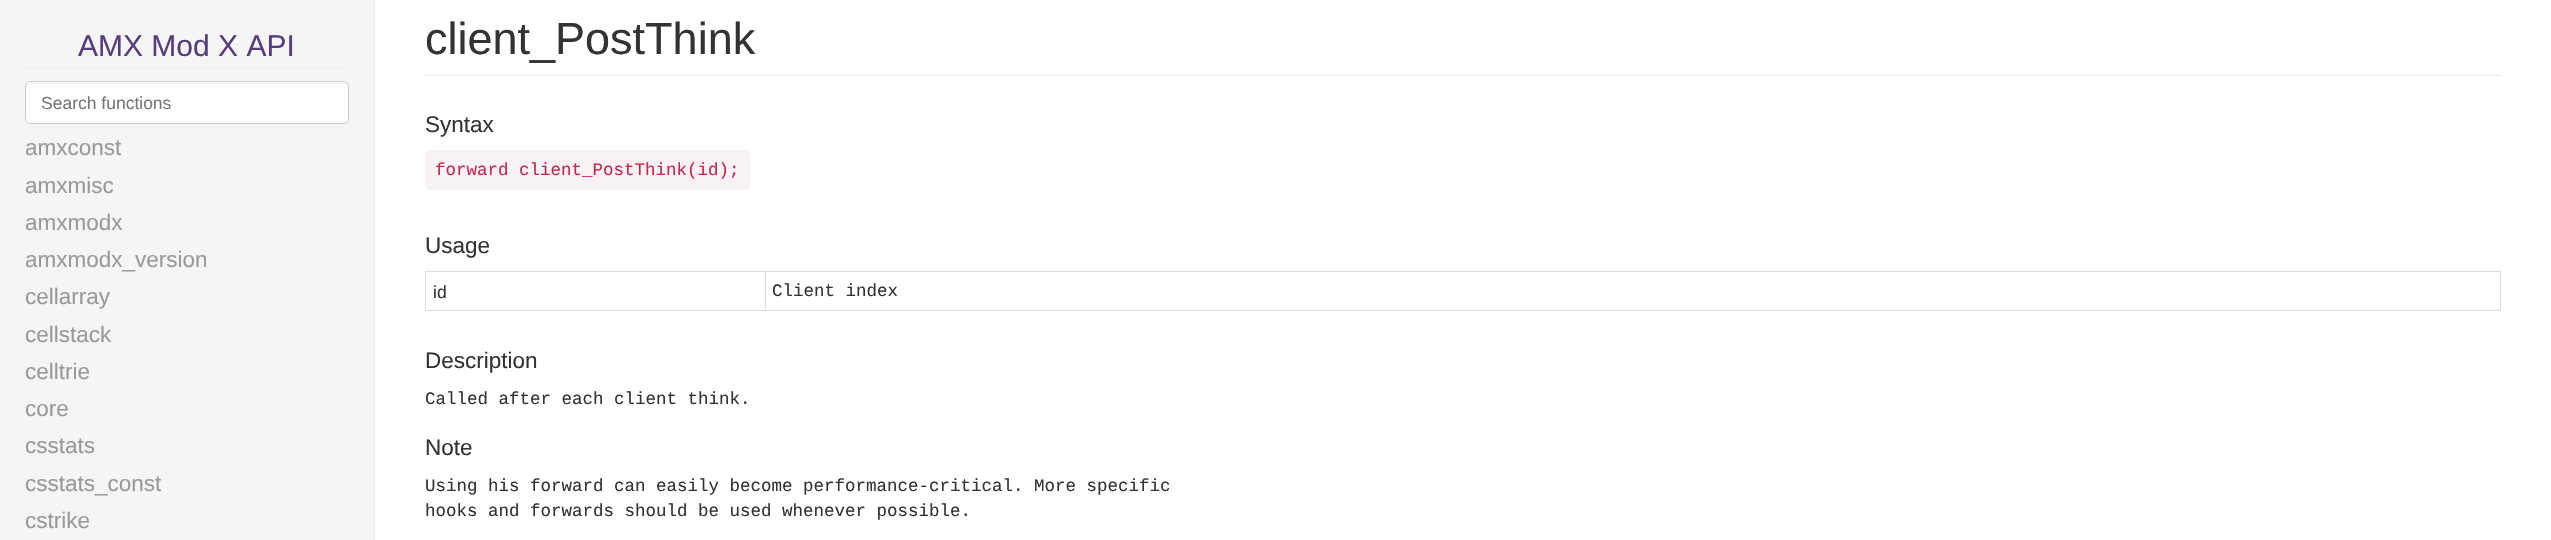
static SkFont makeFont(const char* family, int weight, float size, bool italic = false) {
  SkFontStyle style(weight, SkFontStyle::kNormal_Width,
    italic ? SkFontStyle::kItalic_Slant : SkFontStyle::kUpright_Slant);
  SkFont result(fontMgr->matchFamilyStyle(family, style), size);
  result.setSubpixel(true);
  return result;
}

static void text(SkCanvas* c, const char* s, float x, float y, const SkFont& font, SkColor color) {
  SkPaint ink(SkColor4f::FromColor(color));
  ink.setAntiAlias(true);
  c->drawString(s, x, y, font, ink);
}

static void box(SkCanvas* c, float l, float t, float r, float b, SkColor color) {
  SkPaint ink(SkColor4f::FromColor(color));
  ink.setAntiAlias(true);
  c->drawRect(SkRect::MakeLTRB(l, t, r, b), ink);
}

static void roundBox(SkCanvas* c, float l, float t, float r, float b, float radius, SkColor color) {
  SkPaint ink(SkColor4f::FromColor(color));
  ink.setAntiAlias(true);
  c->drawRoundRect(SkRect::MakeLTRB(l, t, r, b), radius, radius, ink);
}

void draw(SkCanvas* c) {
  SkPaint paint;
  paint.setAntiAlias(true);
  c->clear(0xffffffff);
  box(c, 0, 0, 374, 540, 0xfff5f5f5);
  box(c, 374, 0, 375, 540, 0xffeeeeee);
  box(c, 25, 68, 349, 69, 0xffeeeeee);
  SkFont face1 = makeFont("Liberation Sans", 400, 30);
  text(c, "AMX Mod X API", 78, 56, face1, 0xff563d7c);
  roundBox(c, 25, 81, 349, 124, 5, 0xffffffff);
  paint.setColor(0xffececec);
  c->drawPath(SkPathBuilder().moveTo(30, 84).lineTo(344, 84).cubicTo(346, 84, 348, 85, 348, 88).lineTo(348, 87).cubicTo(348, 85, 346, 83, 344, 83).lineTo(30, 83).cubicTo(28, 83, 26, 85, 26, 87).lineTo(26, 88).cubicTo(26, 85, 28, 84, 30, 84).close().detach(), paint);
  paint.setStyle(SkPaint::kStroke_Style);
  paint.setStrokeWidth(1);
  paint.setColor(0xffcccccc);
  c->drawRoundRect(SkRect::MakeLTRB(25.5f, 81.5f, 348.5f, 123.5f), 4.5f, 4.5f, paint);
  SkFont face2 = makeFont("Liberation Sans", 400, 17.5f);
  text(c, "Search functions", 41, 109, face2, 0xff777777);
  SkFont face3 = makeFont("Liberation Sans", 400, 22.5f);
  text(c, "amxconst", 25, 155, face3, 0xff999999);
  text(c, "amxmisc", 25, 193, face3, 0xff999999);
  text(c, "amxmodx", 25, 230, face3, 0xff999999);
  text(c, "amxmodx_version", 25, 267, face3, 0xff999999);
  text(c, "cellarray", 25, 304, face3, 0xff999999);
  text(c, "cellstack", 25, 342, face3, 0xff999999);
  text(c, "celltrie", 25, 379, face3, 0xff999999);
  text(c, "core", 25, 416, face3, 0xff999999);
  text(c, "csstats", 25, 453, face3, 0xff999999);
  text(c, "csstats_const", 25, 491, face3, 0xff999999);
  text(c, "cstrike", 25, 528, face3, 0xff999999);
  box(c, 425, 75, 2501, 76, 0xffeeeeee);
  SkFont face4 = makeFont("Liberation Sans", 400, 45);
  text(c, "client_PostThink", 425, 54, face4, 0xff333333);
  text(c, "Syntax", 425, 132, face3, 0xff333333);
  roundBox(c, 425, 150, 750, 190, 5, 0xfff9f2f4);
  SkFont face5 = makeFont("Liberation Mono", 400, 17.5f);
  text(c, "forward client_PostThink(id);", 435, 175, face5, 0xffc7254e);
  text(c, "Usage", 425, 253, face3, 0xff333333);
  box(c, 425, 271, 2501, 272, 0xffdddddd);
  box(c, 2500, 271, 2501, 311, 0xffdddddd);
  box(c, 425, 310, 2501, 311, 0xffdddddd);
  box(c, 425, 271, 426, 311, 0xffdddddd);
  text(c, "id", 433, 298, face2, 0xff333333);
  box(c, 765, 271, 766, 311, 0xffdddddd);
  text(c, "Client index", 772, 296, face5, 0xff333333);
  text(c, "Description", 425, 368, face3, 0xff333333);
  text(c, "Called after each client think.", 425, 404, face5, 0xff333333);
  text(c, "Note", 425, 455, face3, 0xff333333);
  text(c, "Using his forward can easily become performance-critical. More specific", 425, 491, face5, 0xff333333);
  text(c, "hooks and forwards should be used whenever possible.", 425, 516, face5, 0xff333333);
}
